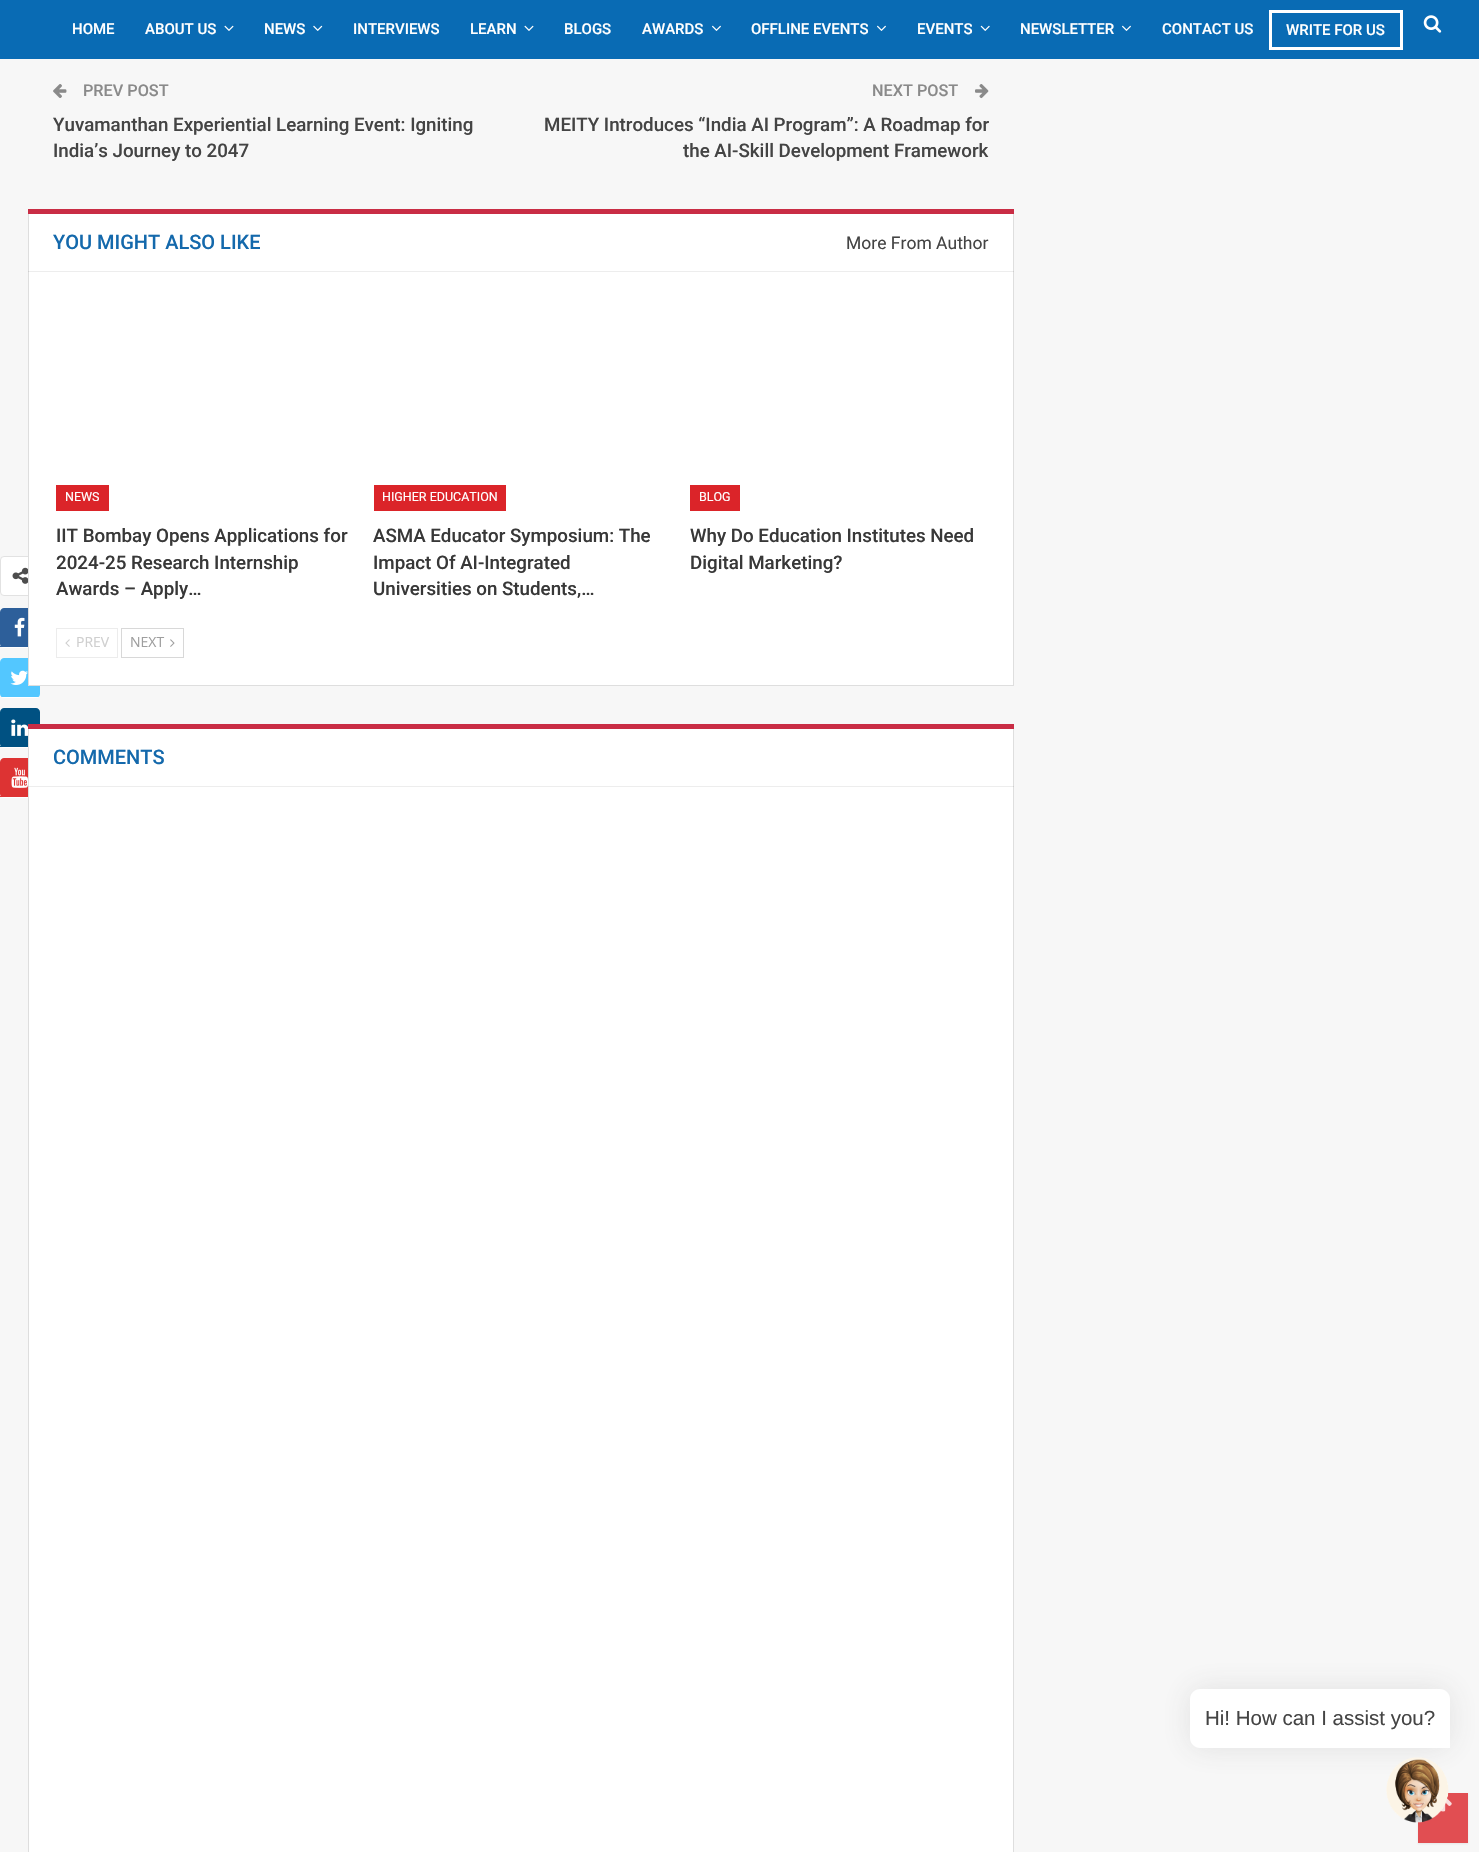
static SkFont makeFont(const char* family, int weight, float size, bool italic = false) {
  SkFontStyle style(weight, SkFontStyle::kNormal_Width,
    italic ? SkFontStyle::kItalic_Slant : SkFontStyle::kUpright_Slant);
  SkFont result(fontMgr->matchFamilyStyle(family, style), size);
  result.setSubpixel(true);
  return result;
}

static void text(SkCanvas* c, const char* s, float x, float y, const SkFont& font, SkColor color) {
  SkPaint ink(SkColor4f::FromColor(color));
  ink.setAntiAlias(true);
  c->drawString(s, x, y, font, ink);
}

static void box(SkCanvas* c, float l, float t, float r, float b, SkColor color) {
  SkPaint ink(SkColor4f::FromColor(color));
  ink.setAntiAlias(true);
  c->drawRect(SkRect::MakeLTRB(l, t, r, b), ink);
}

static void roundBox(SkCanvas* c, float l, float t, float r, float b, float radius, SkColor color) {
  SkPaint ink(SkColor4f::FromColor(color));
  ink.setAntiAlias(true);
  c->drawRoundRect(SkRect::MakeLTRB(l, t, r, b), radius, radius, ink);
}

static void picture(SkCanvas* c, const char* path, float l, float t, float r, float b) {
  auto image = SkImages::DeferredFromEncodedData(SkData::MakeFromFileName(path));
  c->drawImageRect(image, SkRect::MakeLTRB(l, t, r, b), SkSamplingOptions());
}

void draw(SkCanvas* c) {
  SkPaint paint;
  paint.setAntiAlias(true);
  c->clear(0xfff7f7f7);
  box(c, 0, 0, 1479, 59, 0xff096bb4);
  SkFont face1 = makeFont("Roboto", 500, 15);
  text(c, "HOME", 72, 34, face1, 0xffffffff);
  text(c, "ABOUT US", 145, 34, face1, 0xffffffff);
  picture(c, "img_01.png", 224, 25, 234, 31);
  text(c, "NEWS", 264, 34, face1, 0xffffffff);
  picture(c, "img_02.png", 313, 25, 323, 31);
  text(c, "INTERVIEWS", 353, 34, face1, 0xffffffff);
  text(c, "LEARN", 470, 34, face1, 0xffffffff);
  picture(c, "img_01.png", 524, 25, 534, 31);
  text(c, "BLOGS", 564, 34, face1, 0xffffffff);
  text(c, "AWARDS", 642, 34, face1, 0xffffffff);
  picture(c, "img_03.png", 712, 25, 721, 31);
  text(c, "OFFLINE EVENTS", 751, 34, face1, 0xffffffff);
  picture(c, "img_03.png", 877, 25, 886, 31);
  text(c, "EVENTS", 917, 34, face1, 0xffffffff);
  picture(c, "img_04.png", 980, 25, 990, 31);
  text(c, "NEWSLETTER", 1020, 34, face1, 0xffffffff);
  picture(c, "img_03.png", 1122, 25, 1131, 31);
  text(c, "CONTACT US", 1162, 34, face1, 0xffffffff);
  paint.setStyle(SkPaint::kStroke_Style);
  paint.setStrokeWidth(3);
  paint.setColor(0xffffffff);
  c->drawRect(SkRect::MakeLTRB(1270.5f, 11.5f, 1401.5f, 48.5f), paint);
  text(c, "WRITE FOR US", 1286, 35, face1, 0xffffffff);
  picture(c, "img_05.png", 1423, 15, 1442, 33);
  picture(c, "img_06.png", 53, 84, 67, 98);
  SkFont face2 = makeFont("Roboto", 500, 16.25f);
  text(c, "PREV POST", 83, 96, face2, 0xff8a8a8a);
  SkFont face3 = makeFont("Roboto", 500, 18.75f);
  text(c, "Yuvamanthan Experiential Learning Event: Igniting", 53, 131, face3, 0xff444444);
  text(c, "India’s Journey to 2047", 53, 157, face3, 0xff444444);
  text(c, "NEXT POST", 872, 96, face2, 0xff8a8a8a);
  picture(c, "img_07.png", 975, 84, 989, 99);
  text(c, "MEITY Introduces “India AI Program”: A Roadmap for", 544, 131, face3, 0xff444444);
  text(c, "the AI-Skill Development Framework", 683, 157, face3, 0xff444444);
  paint.setStyle(SkPaint::kFill_Style);
  c->drawRoundRect(SkRect::MakeLTRB(0.5f, 556.5f, 40.5f, 595.5f), 3.5f, 3.5f, paint);
  paint.setStyle(SkPaint::kStroke_Style);
  paint.setStrokeWidth(1);
  paint.setColor(0xffe2e2e2);
  c->drawRoundRect(SkRect::MakeLTRB(0.5f, 556.5f, 40.5f, 595.5f), 3.5f, 3.5f, paint);
  picture(c, "img_08.png", 12, 567, 28, 584);
  roundBox(c, 0, 608, 40, 648, 4, 0xffffffff);
  c->save();
  c->clipPath(SkPathBuilder().moveTo(4, 608).lineTo(36, 608).cubicTo(38, 608, 40, 610, 40, 612).lineTo(40, 644).cubicTo(40, 646, 38, 648, 36, 648).lineTo(4, 648).cubicTo(2, 648, 0, 646, 0, 644).lineTo(0, 612).cubicTo(0, 610, 2, 608, 4, 608).close().detach(), true);
  box(c, 0, 609, 28, 646, 0xff2d5f9a);
  box(c, 0, 608, 28, 609, 0xff2d5f9a);
  c->restore();
  box(c, 0, 646, 28, 647, 0xff2d5f9a);
  picture(c, "img_09.png", 14, 617, 25, 637);
  roundBox(c, 0, 658, 40, 698, 4, 0xffffffff);
  c->save();
  c->clipPath(SkPathBuilder().moveTo(4, 658).lineTo(36, 658).cubicTo(38, 658, 40, 660, 40, 662).lineTo(40, 694).cubicTo(40, 696, 38, 698, 36, 698).lineTo(4, 698).cubicTo(2, 698, 0, 696, 0, 694).lineTo(0, 662).cubicTo(0, 660, 2, 658, 4, 658).close().detach(), true);
  box(c, 0, 659, 39, 696, 0xff53c7ff);
  box(c, 0, 658, 28, 659, 0xff53c7ff);
  box(c, 39, 686, 40, 698, 0xff53c7ff);
  box(c, 0, 696, 40, 697, 0xff53c7ff);
  c->restore();
  picture(c, "img_10.png", 10, 670, 28, 685);
  roundBox(c, 0, 708, 40, 748, 4, 0xffffffff);
  c->save();
  c->clipPath(SkPathBuilder().moveTo(4, 708).lineTo(36, 708).cubicTo(38, 708, 40, 710, 40, 712).lineTo(40, 744).cubicTo(40, 746, 38, 748, 36, 748).lineTo(4, 748).cubicTo(2, 748, 0, 746, 0, 744).lineTo(0, 712).cubicTo(0, 710, 2, 708, 4, 708).close().detach(), true);
  box(c, 0, 709, 39, 746, 0xff005182);
  box(c, 0, 708, 40, 709, 0xff005182);
  box(c, 39, 708, 40, 724, 0xff005182);
  c->restore();
  box(c, 0, 746, 28, 747, 0xff005182);
  picture(c, "img_11.png", 11, 719, 28, 736);
  roundBox(c, 0, 758, 40, 798, 4, 0xffffffff);
  c->save();
  c->clipPath(SkPathBuilder().moveTo(4, 758).lineTo(36, 758).cubicTo(38, 758, 40, 760, 40, 762).lineTo(40, 794).cubicTo(40, 796, 38, 798, 36, 798).lineTo(4, 798).cubicTo(2, 798, 0, 796, 0, 794).lineTo(0, 762).cubicTo(0, 760, 2, 758, 4, 758).close().detach(), true);
  box(c, 0, 759, 28, 796, 0xffdd3333);
  box(c, 0, 758, 28, 759, 0xffdd3333);
  c->restore();
  box(c, 0, 796, 28, 797, 0xffdd3333);
  picture(c, "img_12.png", 11, 767, 28, 788);
  box(c, 29, 214, 1013, 685, 0xffffffff);
  paint.setColor(0xffdedede);
  c->drawRect(SkRect::MakeLTRB(28.5f, 209.5f, 1013.5f, 685.5f), paint);
  box(c, 28, 209, 1014, 214, 0xffc92d45);
  SkFont face4 = makeFont("Roboto", 500, 20);
  text(c, "YOU MIGHT ALSO LIKE", 53, 249, face4, 0xff1469ac);
  SkFont face5 = makeFont("Roboto", 400, 17.5f);
  text(c, "More From Author", 846, 249, face5, 0xff444444);
  box(c, 28, 271, 1014, 272, 0x12000000);
  box(c, 56, 485, 109, 511, 0xffdb2429);
  SkFont face6 = makeFont("Roboto", 400, 12.5f);
  text(c, "NEWS", 65, 501, face6, 0xffffffff);
  text(c, "IIT Bombay Opens Applications for", 56, 542, face3, 0xff383838);
  text(c, "2024-25 Research Internship", 56, 569, face3, 0xff383838);
  text(c, "Awards – Apply…", 56, 595, face3, 0xff383838);
  box(c, 374, 485, 506, 511, 0xffdb2429);
  text(c, "HIGHER EDUCATION", 382, 501, face6, 0xffffffff);
  text(c, "ASMA Educator Symposium: The", 373, 542, face3, 0xff383838);
  text(c, "Impact Of AI-Integrated", 373, 569, face3, 0xff383838);
  text(c, "Universities on Students,…", 373, 595, face3, 0xff383838);
  box(c, 690, 485, 740, 511, 0xffdb2429);
  text(c, "BLOG", 699, 501, face6, 0xffffffff);
  text(c, "Why Do Education Institutes Need", 690, 542, face3, 0xff383838);
  text(c, "Digital Marketing?", 690, 569, face3, 0xff383838);
  paint.setColor(0xffececec);
  c->drawRect(SkRect::MakeLTRB(56.5f, 628.5f, 117.5f, 657.5f), paint);
  picture(c, "img_13.png", 65, 639, 70, 647);
  SkFont face7 = makeFont("Open Sans", 400, 14);
  text(c, "PREV", 76, 647, face7, 0xffcfcfcf);
  paint.setColor(0xffd8d8d8);
  c->drawRect(SkRect::MakeLTRB(121.5f, 628.5f, 183.5f, 657.5f), paint);
  text(c, "NEXT", 130, 647, face7, 0xff9e9e9e);
  picture(c, "img_14.png", 170, 639, 175, 647);
  box(c, 29, 729, 1013, 1852, 0xffffffff);
  paint.setColor(0xffdedede);
  c->drawRect(SkRect::MakeLTRB(28.5f, 724.5f, 1013.5f, 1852.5f), paint);
  box(c, 28, 724, 1014, 729, 0xffc92d45);
  text(c, "COMMENTS", 53, 764, face4, 0xff1469ac);
  box(c, 28, 786, 1014, 787, 0x12000000);
  paint.setStyle(SkPaint::kFill_Style);
  paint.setColor(0x17313131);
  paint.setMaskFilter(SkMaskFilter::MakeBlur(kNormal_SkBlurStyle, 1));
  c->drawRect(SkRect::MakeLTRB(1418, 1794, 1468, 1844), paint);
  paint.setMaskFilter(nullptr);
  box(c, 1418, 1793, 1468, 1843, 0xffe14e52);
  paint.setColor(0x1f403f42);
  paint.setMaskFilter(SkMaskFilter::MakeBlur(kNormal_SkBlurStyle, 15));
  c->drawRoundRect(SkRect::MakeLTRB(1190, 1689, 1450, 1748), 10, 10, paint);
  paint.setMaskFilter(nullptr);
  paint.setColor(0xffffffff);
  c->drawPath(SkPathBuilder().moveTo(1200, 1689).lineTo(1440, 1689).cubicTo(1445.5f, 1689, 1450, 1693.5f, 1450, 1699).lineTo(1450, 1748).lineTo(1200, 1748).cubicTo(1194.5f, 1748, 1190, 1743.5f, 1190, 1738).lineTo(1190, 1699).cubicTo(1190, 1693.5f, 1194.5f, 1689, 1200, 1689).close().detach(), paint);
  SkFont face8 = makeFont("Liberation Sans", 400, 20.5f);
  text(c, "Hi! How can I assist you?", 1205, 1725, face8, 0xff444444);
  picture(c, "img_16.png", 1440, 1798, 1452, 1812);
  picture(c, "img_15.png", 1386, 1757, 1449, 1823);
}
